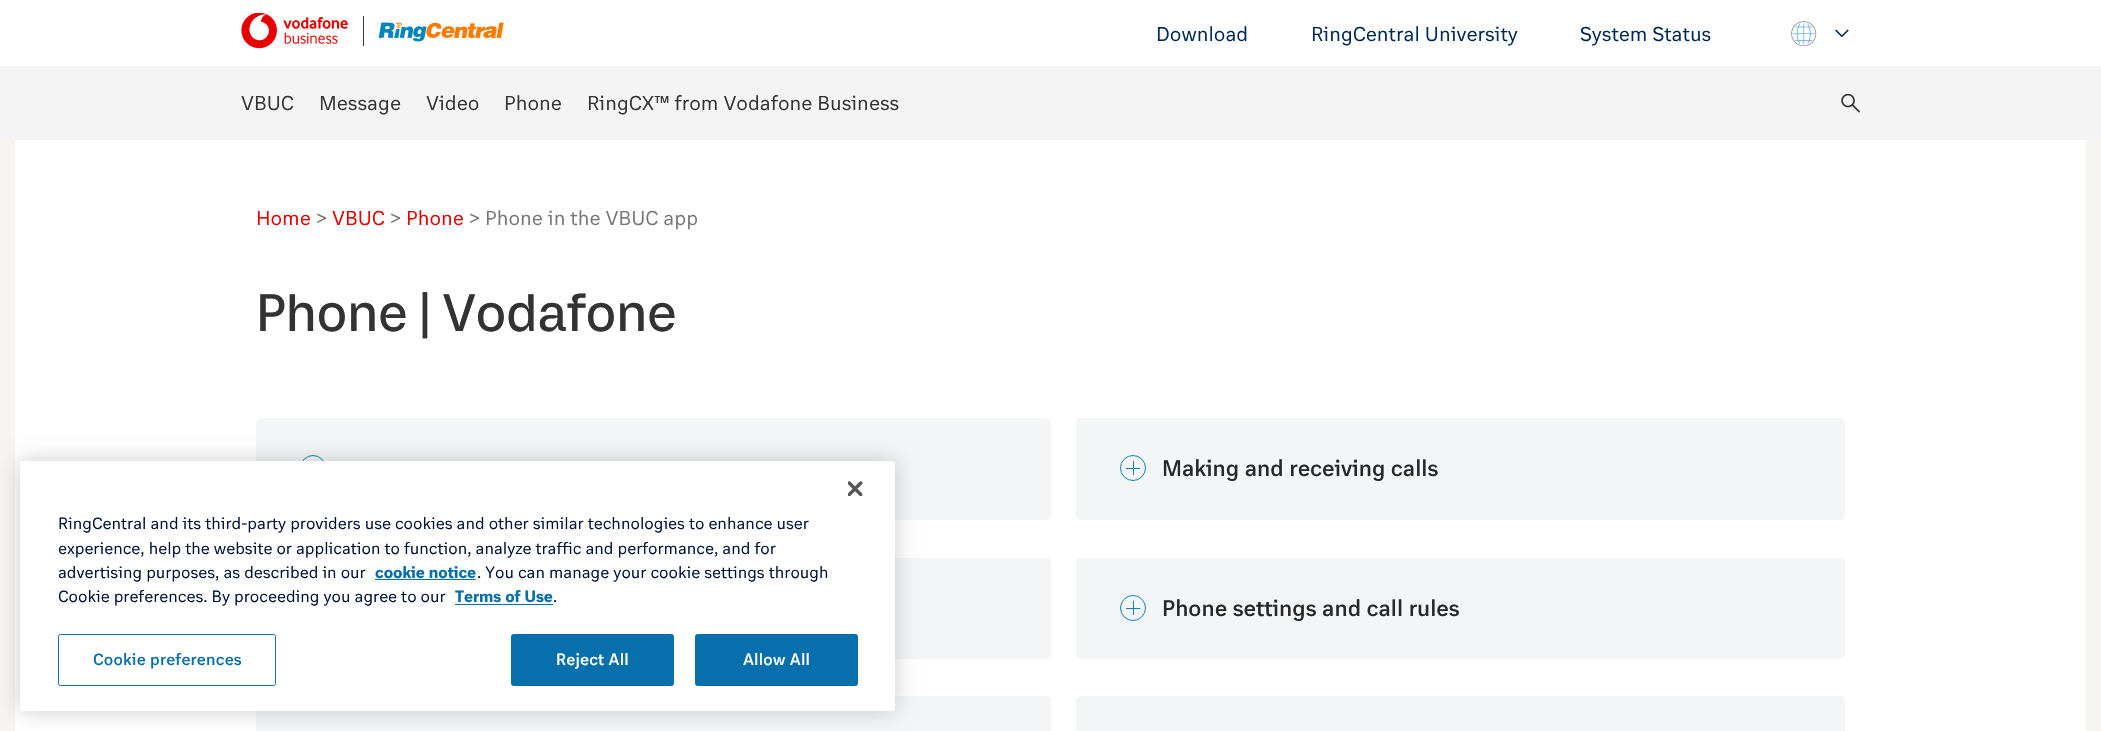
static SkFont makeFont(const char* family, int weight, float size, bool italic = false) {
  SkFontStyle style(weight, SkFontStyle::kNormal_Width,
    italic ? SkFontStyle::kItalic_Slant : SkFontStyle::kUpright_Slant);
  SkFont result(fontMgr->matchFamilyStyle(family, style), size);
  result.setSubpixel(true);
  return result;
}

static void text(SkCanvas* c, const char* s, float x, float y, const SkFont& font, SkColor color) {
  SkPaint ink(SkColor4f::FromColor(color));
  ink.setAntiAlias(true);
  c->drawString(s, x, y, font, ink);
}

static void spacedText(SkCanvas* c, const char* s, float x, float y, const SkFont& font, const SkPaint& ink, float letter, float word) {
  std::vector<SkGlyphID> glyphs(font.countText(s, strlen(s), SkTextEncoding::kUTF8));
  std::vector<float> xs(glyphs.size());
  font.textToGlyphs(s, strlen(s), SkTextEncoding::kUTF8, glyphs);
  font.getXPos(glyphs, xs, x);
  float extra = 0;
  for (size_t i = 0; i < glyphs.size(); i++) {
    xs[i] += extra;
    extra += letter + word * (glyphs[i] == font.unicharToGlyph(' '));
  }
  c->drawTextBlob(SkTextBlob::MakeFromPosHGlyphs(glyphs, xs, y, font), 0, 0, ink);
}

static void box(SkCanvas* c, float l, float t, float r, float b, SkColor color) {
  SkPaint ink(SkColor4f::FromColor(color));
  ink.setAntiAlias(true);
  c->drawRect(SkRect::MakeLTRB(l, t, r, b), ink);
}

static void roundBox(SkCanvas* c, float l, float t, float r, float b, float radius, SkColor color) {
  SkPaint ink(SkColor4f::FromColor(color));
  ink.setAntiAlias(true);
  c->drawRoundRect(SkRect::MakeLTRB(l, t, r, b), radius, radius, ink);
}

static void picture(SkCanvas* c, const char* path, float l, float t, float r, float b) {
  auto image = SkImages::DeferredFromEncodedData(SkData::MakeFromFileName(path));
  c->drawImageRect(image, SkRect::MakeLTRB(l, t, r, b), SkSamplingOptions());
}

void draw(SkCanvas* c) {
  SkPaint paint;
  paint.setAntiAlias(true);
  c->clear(0xfff6f5f1);
  box(c, 0, 66, 2101, 140, 0xfff4f4f4);
  box(c, 0, 0, 2101, 66, 0xffffffff);
  picture(c, "img_01.png", 241, 13, 504, 49);
  SkFont face1 = makeFont("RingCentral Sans", 400, 20);
  text(c, "Download", 1156, 41, face1, 0xff002855);
  text(c, "RingCentral University", 1311, 41, face1, 0xff002855);
  text(c, "System Status", 1580, 41, face1, 0xff002855);
  picture(c, "img_02.png", 1791, 21, 1817, 46);
  picture(c, "img_03.png", 1835, 29, 1849, 37);
  text(c, "VBUC", 241, 110, face1, 0xff333333);
  text(c, "Message", 319, 110, face1, 0xff333333);
  text(c, "Video", 426, 110, face1, 0xff333333);
  text(c, "Phone", 504, 110, face1, 0xff333333);
  text(c, "RingCX™ from Vodafone Business", 587, 110, face1, 0xff333333);
  picture(c, "img_04.png", 1841, 94, 1860, 113);
  box(c, 15, 140, 2086, 731, 0xffffffff);
  text(c, "Home", 256, 225, face1, 0xffe60000);
  text(c, ">", 316, 225, face1, 0xff767676);
  text(c, "VBUC", 332, 225, face1, 0xffe60000);
  text(c, ">", 390, 225, face1, 0xff767676);
  text(c, "Phone", 406, 225, face1, 0xffe60000);
  text(c, "> Phone in the VBUC app", 469, 225, face1, 0xff767676);
  SkFont face2 = makeFont("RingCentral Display", 500, 52.5f);
  text(c, "Phone | Vodafone", 256, 331, face2, 0xff333333);
  roundBox(c, 256, 418, 1051, 520, 5, 0xfff3f5f6);
  paint.setStyle(SkPaint::kStroke_Style);
  paint.setStrokeWidth(1);
  paint.setColor(0xff0684bd);
  c->drawCircle(313, 468, 12.5f, paint);
  roundBox(c, 1076, 418, 1845, 520, 5, 0xfff3f5f6);
  c->drawCircle(1133, 468, 12.5f, paint);
  box(c, 1126, 468, 1140, 469, 0xff0684bd);
  box(c, 1133, 461, 1134, 475, 0xff0684bd);
  SkFont face3 = makeFont("RingCentral Sans", 500, 22.5f);
  text(c, "Making and receiving calls", 1162, 476, face3, 0xff282829);
  roundBox(c, 256, 558, 1051, 659, 5, 0xfff3f5f6);
  roundBox(c, 1076, 558, 1845, 659, 5, 0xfff3f5f6);
  c->drawCircle(1133, 608, 12.5f, paint);
  box(c, 1126, 608, 1140, 609, 0xff0684bd);
  box(c, 1133, 601, 1134, 615, 0xff0684bd);
  text(c, "Phone settings and call rules", 1162, 616, face3, 0xff282829);
  roundBox(c, 256, 696, 1051, 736, 5, 0xfff3f5f6);
  roundBox(c, 1076, 696, 1845, 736, 5, 0xfff3f5f6);
  paint.setStyle(SkPaint::kFill_Style);
  paint.setColor(0x33000000);
  paint.setMaskFilter(SkMaskFilter::MakeBlur(kNormal_SkBlurStyle, 11));
  c->drawRoundRect(SkRect::MakeLTRB(20, 461, 895, 711), 3, 3, paint);
  paint.setMaskFilter(nullptr);
  roundBox(c, 20, 461, 895, 711, 3, 0xffffffff);
  picture(c, "img_05.png", 848, 481, 863, 496);
  SkFont face4 = makeFont("RingCentral Sans", 400, 16.25f);
  text(c, "RingCentral and its third-party providers use cookies and other similar technologies to enhance user", 58, 529, face4, 0xff001138);
  text(c, "experience, help the website or application to function, analyze traffic and performance, and for", 58, 554, face4, 0xff001138);
  text(c, "advertising purposes, as described in our", 58, 578, face4, 0xff001138);
  SkFont face5 = makeFont("RingCentral Sans", 700, 16.25f);
  text(c, "cookie notice", 375, 578, face5, 0xff066fac);
  box(c, 375, 579, 476, 580, 0xff066fac);
  text(c, ". You can manage your cookie settings through", 477, 578, face4, 0xff001138);
  text(c, "Cookie preferences. By proceeding you agree to our", 58, 602, face4, 0xff001138);
  text(c, "Terms of Use", 455, 602, face5, 0xff066fac);
  box(c, 455, 604, 553, 605, 0xff066fac);
  text(c, ".", 553, 602, face4, 0xff001138);
  paint.setStyle(SkPaint::kStroke_Style);
  paint.setColor(0xff066fac);
  c->drawRoundRect(SkRect::MakeLTRB(58.5f, 634.5f, 275.5f, 685.5f), 2, 2, paint);
  SkFont face6 = makeFont("RingCentral Sans", 500, 16.25f);
  paint.setStyle(SkPaint::kFill_Style);
  spacedText(c, "Cookie preferences", 93, 665, face6, paint, 0.2f, 0);
  c->drawRoundRect(SkRect::MakeLTRB(511.5f, 634.5f, 673.5f, 685.5f), 2, 2, paint);
  paint.setStyle(SkPaint::kStroke_Style);
  c->drawRoundRect(SkRect::MakeLTRB(511.5f, 634.5f, 673.5f, 685.5f), 2, 2, paint);
  paint.setStyle(SkPaint::kFill_Style);
  paint.setColor(0xffffffff);
  spacedText(c, "Reject All", 556, 665, face6, paint, 0.2f, 0);
  paint.setColor(0xff066fac);
  c->drawRoundRect(SkRect::MakeLTRB(695.5f, 634.5f, 857.5f, 685.5f), 2, 2, paint);
  paint.setStyle(SkPaint::kStroke_Style);
  c->drawRoundRect(SkRect::MakeLTRB(695.5f, 634.5f, 857.5f, 685.5f), 2, 2, paint);
  paint.setStyle(SkPaint::kFill_Style);
  paint.setColor(0xffffffff);
  spacedText(c, "Allow All", 743, 665, face6, paint, 0.2f, 0);
}
